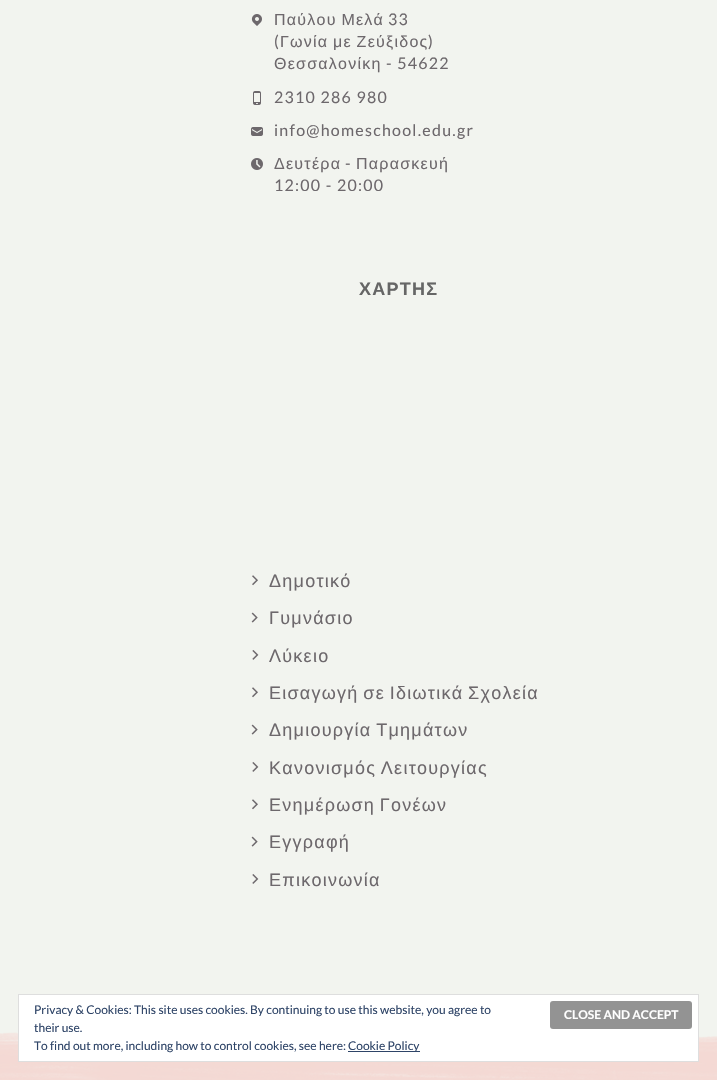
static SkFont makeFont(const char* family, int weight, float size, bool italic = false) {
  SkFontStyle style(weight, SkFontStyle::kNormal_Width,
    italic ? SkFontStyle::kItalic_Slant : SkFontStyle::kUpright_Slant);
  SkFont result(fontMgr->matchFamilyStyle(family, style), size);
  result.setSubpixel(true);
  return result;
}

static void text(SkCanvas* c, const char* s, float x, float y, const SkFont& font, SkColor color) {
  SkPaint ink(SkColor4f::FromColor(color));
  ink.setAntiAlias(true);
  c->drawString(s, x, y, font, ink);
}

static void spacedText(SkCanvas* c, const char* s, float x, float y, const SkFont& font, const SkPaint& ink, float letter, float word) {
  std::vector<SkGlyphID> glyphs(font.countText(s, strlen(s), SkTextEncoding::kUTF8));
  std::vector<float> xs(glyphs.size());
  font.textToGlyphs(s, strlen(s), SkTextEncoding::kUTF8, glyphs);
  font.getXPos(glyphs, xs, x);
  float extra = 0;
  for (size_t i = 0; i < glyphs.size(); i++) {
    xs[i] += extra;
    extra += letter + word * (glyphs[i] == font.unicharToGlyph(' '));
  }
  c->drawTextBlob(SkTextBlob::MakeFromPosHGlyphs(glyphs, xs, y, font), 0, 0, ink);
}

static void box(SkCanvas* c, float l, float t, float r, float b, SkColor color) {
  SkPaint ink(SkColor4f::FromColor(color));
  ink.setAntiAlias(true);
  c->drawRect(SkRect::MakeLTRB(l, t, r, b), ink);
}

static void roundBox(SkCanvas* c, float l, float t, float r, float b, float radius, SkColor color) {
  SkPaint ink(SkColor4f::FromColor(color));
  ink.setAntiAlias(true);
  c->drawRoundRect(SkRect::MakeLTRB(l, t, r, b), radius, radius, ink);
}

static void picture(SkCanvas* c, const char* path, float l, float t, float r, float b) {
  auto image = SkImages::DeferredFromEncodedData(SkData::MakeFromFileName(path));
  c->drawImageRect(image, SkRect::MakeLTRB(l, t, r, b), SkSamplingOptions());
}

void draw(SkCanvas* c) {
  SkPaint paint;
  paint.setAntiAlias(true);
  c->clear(0xfff2f4ef);
  picture(c, "img_01.png", 251, 14, 262, 26);
  SkFont face1 = makeFont("Liberation Sans", 400, 16);
  paint.setColor(0xff6d686c);
  spacedText(c, "Παύλου Μελά", 274, 25, face1, paint, 1.25f, -1);
  SkFont face2 = makeFont("Lato", 400, 16);
  spacedText(c, "33", 388, 25, face2, paint, 1.25f, 0);
  spacedText(c, "(", 274, 47, face2, paint, 1.25f, 0);
  spacedText(c, "Γωνία με Ζεύξιδος", 280, 47, face1, paint, 1.25f, -1);
  spacedText(c, ")", 428, 47, face2, paint, 1.25f, 0);
  spacedText(c, "Θεσσαλονίκη", 274, 69, face1, paint, 1.25f, 0);
  spacedText(c, "- 54622", 386, 69, face2, paint, 1.25f, 0);
  picture(c, "img_02.png", 253, 91, 261, 105);
  spacedText(c, "2310 286 980", 274, 103, face2, paint, 1.25f, 0);
  picture(c, "img_03.png", 251, 127, 263, 136);
  spacedText(c, "info@homeschool.edu.gr", 274, 136, face2, paint, 1.25f, 0);
  picture(c, "img_04.png", 251, 158, 263, 170);
  spacedText(c, "Δευτέρα", 274, 169, face1, paint, 1.25f, 0);
  spacedText(c, "-", 345, 169, face2, paint, 1.25f, 0);
  spacedText(c, "Παρασκευή", 356, 169, face1, paint, 1.25f, 0);
  spacedText(c, "12:00 - 20:00", 274, 191, face2, paint, 1.25f, 0);
  SkFont face3 = makeFont("Liberation Sans", 700, 18);
  paint.setColor(0xff666666);
  spacedText(c, "ΧΑΡΤΗΣ", 359, 295, face3, paint, 1.25f, 0);
  picture(c, "img_05.png", 252, 575, 258, 586);
  SkFont face4 = makeFont("Liberation Sans", 400, 18);
  paint.setColor(0xff6d686c);
  spacedText(c, "Δημοτικό", 269, 587, face4, paint, 1.25f, 0);
  picture(c, "img_06.png", 251, 612, 258, 623);
  spacedText(c, "Γυμνάσιο", 269, 624, face4, paint, 1.25f, 0);
  picture(c, "img_07.png", 252, 650, 259, 660);
  spacedText(c, "Λύκειο", 269, 662, face4, paint, 1.25f, 0);
  picture(c, "img_08.png", 252, 687, 258, 698);
  spacedText(c, "Εισαγωγή σε Ιδιωτικά Σχολεία", 269, 699, face4, paint, 1.25f, -1.5f);
  picture(c, "img_09.png", 251, 724, 258, 735);
  spacedText(c, "Δημιουργία Τμημάτων", 269, 736, face4, paint, 1.25f, -1.5f);
  picture(c, "img_10.png", 252, 762, 259, 772);
  spacedText(c, "Κανονισμός Λειτουργίας", 269, 774, face4, paint, 1.25f, -1.5f);
  picture(c, "img_11.png", 252, 799, 258, 810);
  spacedText(c, "Ενημέρωση Γονέων", 269, 811, face4, paint, 1.25f, -1.5f);
  picture(c, "img_12.png", 251, 836, 258, 847);
  spacedText(c, "Εγγραφή", 269, 848, face4, paint, 1.25f, 0);
  picture(c, "img_13.png", 252, 874, 259, 884);
  spacedText(c, "Επικοινωνία", 269, 886, face4, paint, 1.25f, 0);
  picture(c, "img_14.png", 0, 1032, 717, 1080);
  paint.setColor(0xffffffff);
  c->drawRect(SkRect::MakeLTRB(18.5f, 994.5f, 698.5f, 1061.5f), paint);
  paint.setStyle(SkPaint::kStroke_Style);
  paint.setStrokeWidth(1);
  paint.setColor(0xffdedede);
  c->drawRect(SkRect::MakeLTRB(18.5f, 994.5f, 698.5f, 1061.5f), paint);
  SkFont face5 = makeFont("Lato", 400, 12);
  text(c, "Privacy & Cookies: This site uses cookies. By continuing to use this website, you agree to", 34, 1014, face5, 0xff2e4467);
  roundBox(c, 550, 1001, 692, 1029, 3, 0xff939393);
  SkFont face6 = makeFont("Lato", 700, 12);
  text(c, "CLOSE AND ACCEPT", 564, 1019, face6, 0xffffffff);
  text(c, "their use.", 34, 1032, face5, 0xff2e4467);
  text(c, "To find out more, including how to control cookies, see here:", 34, 1050, face5, 0xff2e4467);
  box(c, 348, 1051, 420, 1052, 0xff2e4467);
  text(c, "Cookie Policy", 348, 1050, face5, 0xff2e4467);
}
